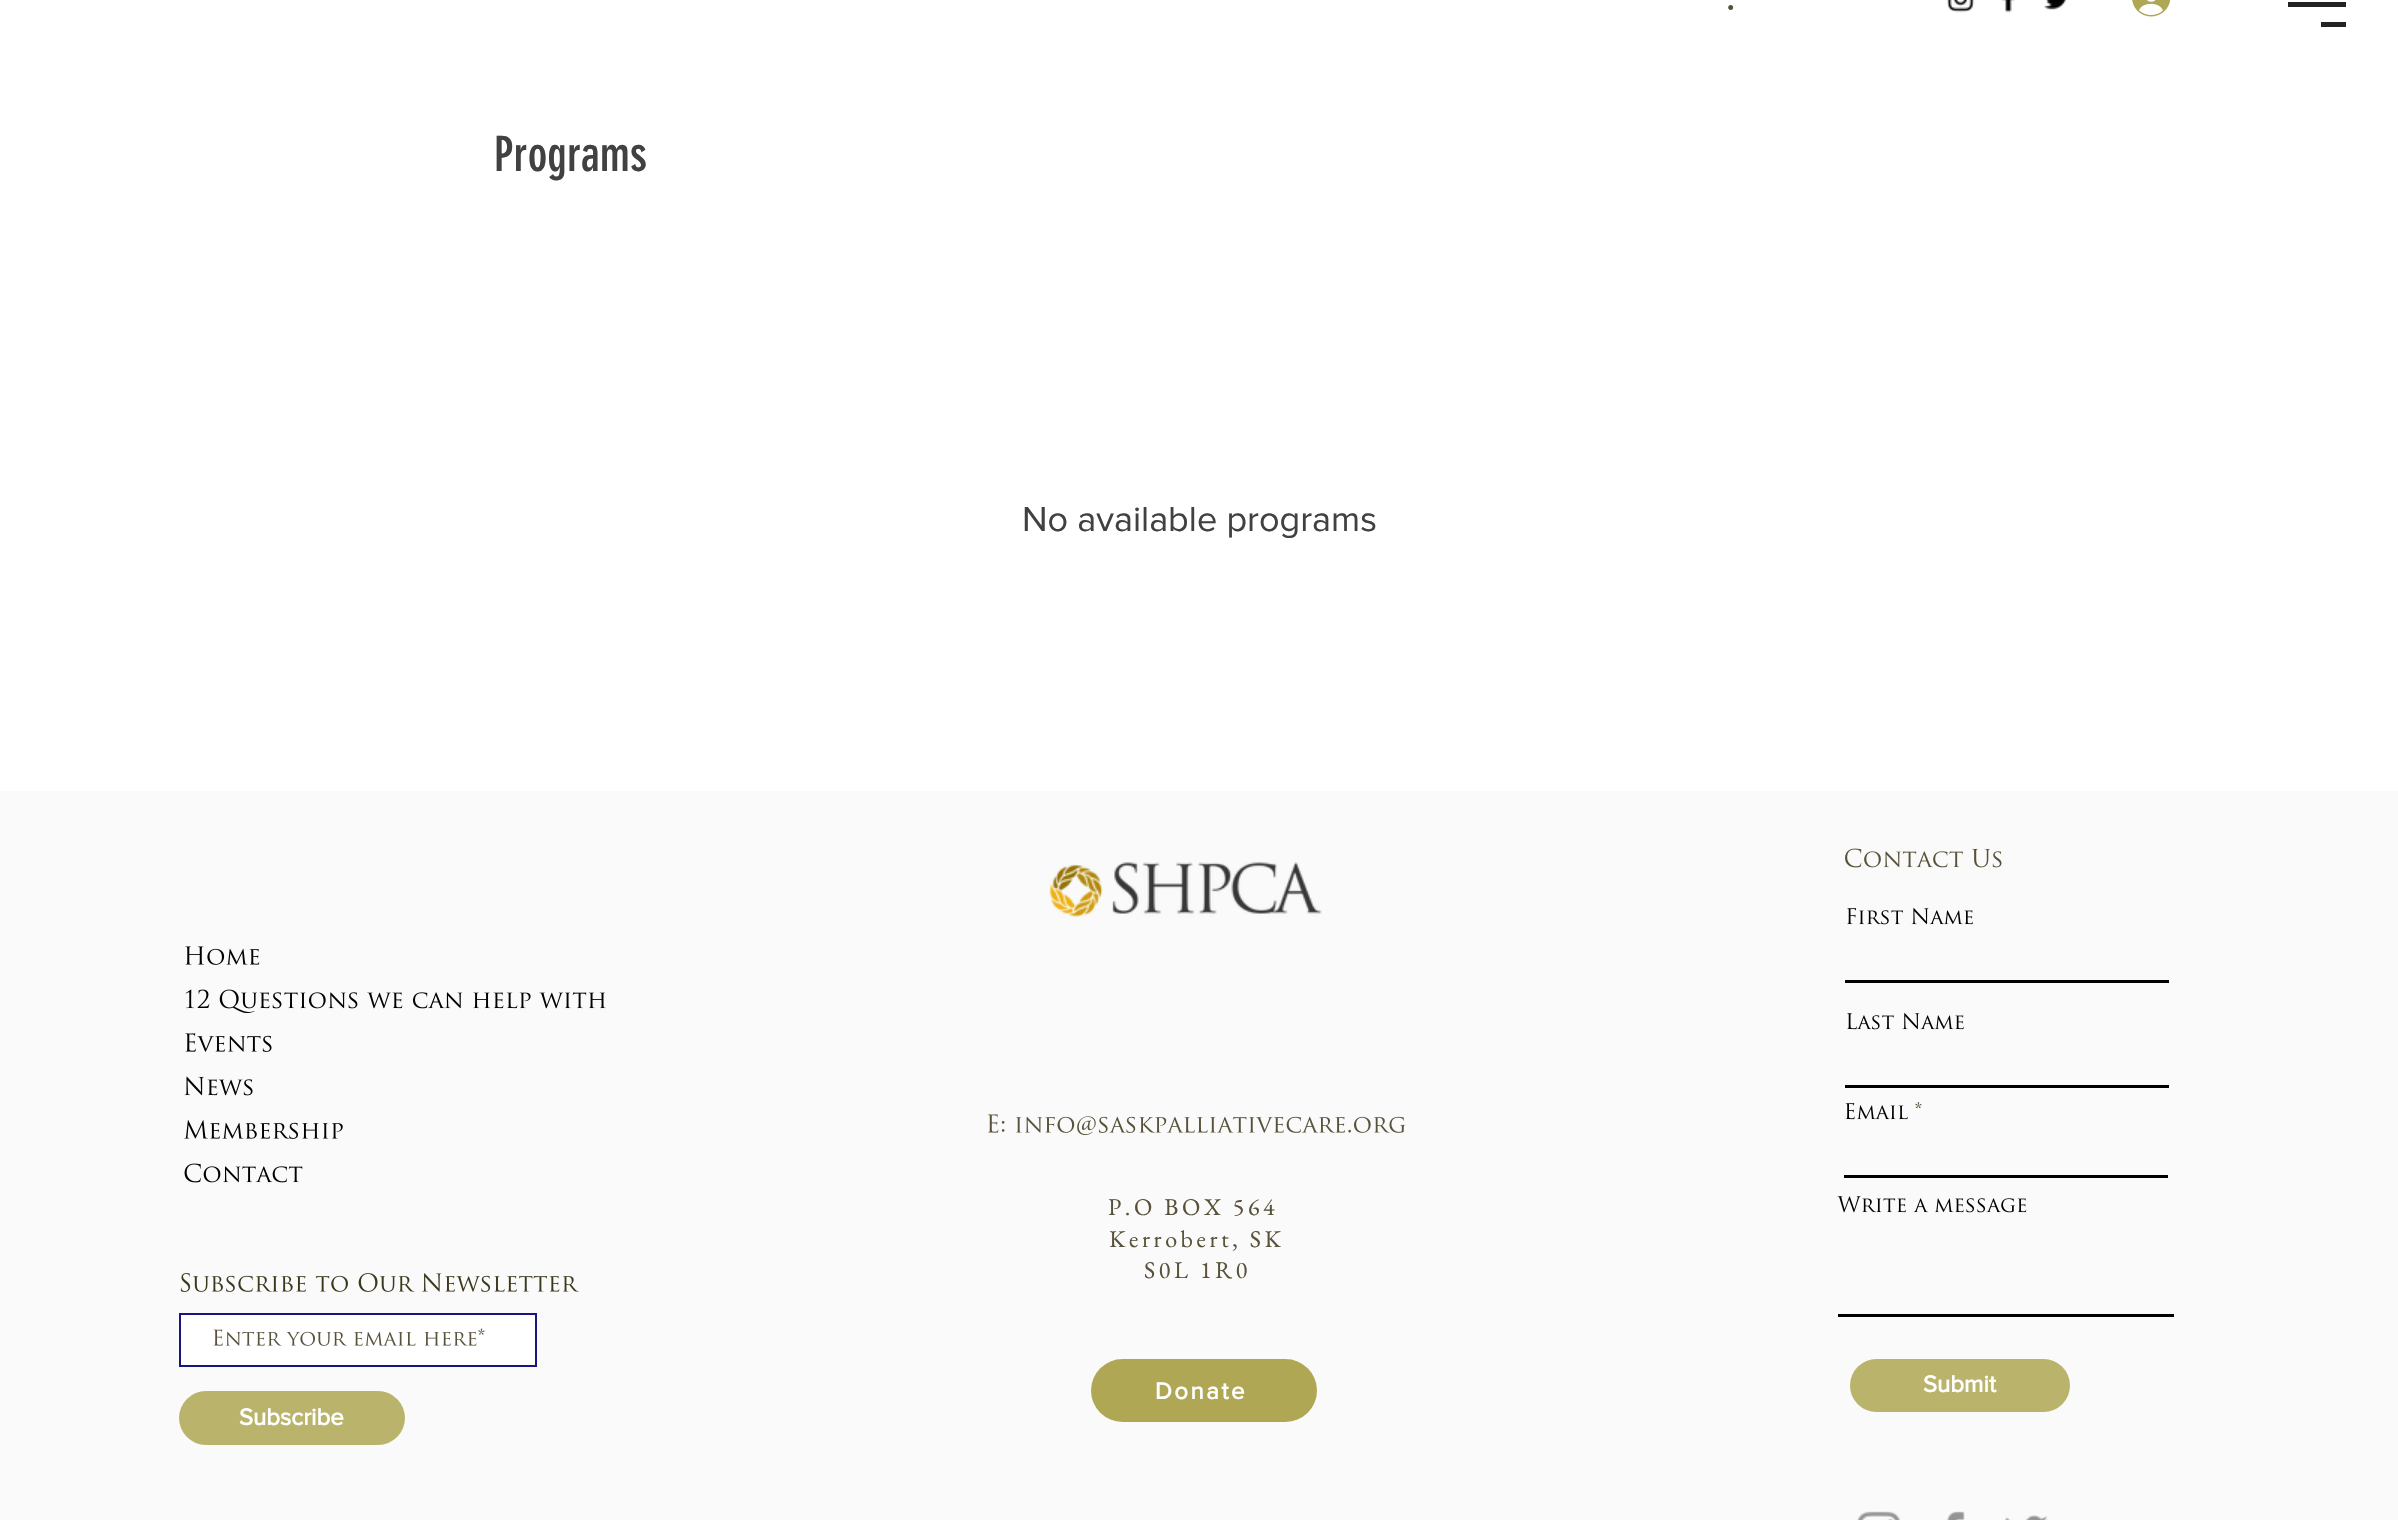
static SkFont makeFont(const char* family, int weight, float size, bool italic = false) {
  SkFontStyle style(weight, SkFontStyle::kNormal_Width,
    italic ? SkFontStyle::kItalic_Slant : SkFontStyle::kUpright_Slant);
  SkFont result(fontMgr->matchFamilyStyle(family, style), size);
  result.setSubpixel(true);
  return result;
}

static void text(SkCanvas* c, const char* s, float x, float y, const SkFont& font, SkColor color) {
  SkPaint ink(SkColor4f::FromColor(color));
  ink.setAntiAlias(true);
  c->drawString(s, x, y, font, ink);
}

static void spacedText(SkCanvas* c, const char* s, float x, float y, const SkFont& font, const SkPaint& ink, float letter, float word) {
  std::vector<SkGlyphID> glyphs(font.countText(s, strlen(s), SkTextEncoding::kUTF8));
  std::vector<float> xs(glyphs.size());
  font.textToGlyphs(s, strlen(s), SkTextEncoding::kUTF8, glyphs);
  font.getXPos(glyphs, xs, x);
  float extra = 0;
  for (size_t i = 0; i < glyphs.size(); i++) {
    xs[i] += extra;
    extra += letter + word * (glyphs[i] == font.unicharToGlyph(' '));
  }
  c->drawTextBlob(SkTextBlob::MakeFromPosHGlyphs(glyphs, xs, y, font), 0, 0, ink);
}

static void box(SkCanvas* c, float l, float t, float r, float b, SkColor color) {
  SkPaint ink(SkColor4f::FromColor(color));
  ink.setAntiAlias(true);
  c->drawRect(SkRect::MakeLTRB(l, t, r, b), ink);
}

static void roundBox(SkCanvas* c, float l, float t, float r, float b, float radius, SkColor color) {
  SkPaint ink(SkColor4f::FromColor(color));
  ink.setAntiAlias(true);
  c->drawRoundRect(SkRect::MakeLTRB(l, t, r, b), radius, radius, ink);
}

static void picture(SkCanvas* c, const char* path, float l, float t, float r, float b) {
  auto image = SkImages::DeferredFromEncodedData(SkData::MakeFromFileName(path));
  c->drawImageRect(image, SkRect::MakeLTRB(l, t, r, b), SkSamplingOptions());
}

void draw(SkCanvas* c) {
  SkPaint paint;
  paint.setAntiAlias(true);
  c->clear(0xffffffff);
  SkFont face1 = makeFont("EB Garamond", 700, 30);
  text(c, ".", 1727, 9, face1, 0xff58523a);
  picture(c, "img_01.png", 1947, 0, 1975, 13);
  picture(c, "img_02.png", 2001, 0, 2015, 13);
  picture(c, "img_03.png", 2044, 0, 2066, 10);
  picture(c, "img_04.png", 2132, 0, 2171, 17);
  box(c, 2321, 22, 2346, 27, 0xff242323);
  box(c, 2288, 2, 2346, 7, 0xff242323);
  SkFont face2 = makeFont("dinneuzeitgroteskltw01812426", 400, 48);
  text(c, "Programs", 494, 171, face2, 0xff414141);
  SkFont face3 = makeFont("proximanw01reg", 400, 36);
  text(c, "No available programs", 1022, 531, face3, 0xff414141);
  box(c, 0, 791, 2398, 1520, 0xfffafafa);
  picture(c, "img_05.png", 1049, 862, 1322, 917);
  picture(c, "img_06.png", 987, 1114, 1005, 1133);
  picture(c, "img_07.png", 1016, 1116, 1406, 1136);
  SkFont face4 = makeFont("EB Garamond", 400, 24);
  paint.setColor(0xff58523a);
  spacedText(c, "P.O BOX 564", 1108, 1215, face4, paint, 3.6f, 0);
  spacedText(c, "Kerrobert, SK", 1109, 1247, face4, paint, 3.6f, 0);
  spacedText(c, "S0L 1R0", 1144, 1278, face4, paint, 3.6f, 0);
  roundBox(c, 1091, 1359, 1317, 1422, 31.5f, 0xffb0a755);
  SkFont face5 = makeFont("proximanw01reg", 700, 24);
  paint.setColor(0xffffffff);
  spacedText(c, "Donate", 1155, 1399, face5, paint, 2.5f, 0);
  picture(c, "img_08.png", 1845, 848, 2002, 868);
  picture(c, "img_09.png", 1847, 908, 1973, 925);
  box(c, 1845, 980, 2169, 983, 0xff000000);
  picture(c, "img_10.png", 1847, 1013, 1964, 1030);
  box(c, 1845, 1085, 2169, 1088, 0xff000000);
  picture(c, "img_11.png", 1845, 1103, 1908, 1120);
  picture(c, "img_12.png", 1915, 1102, 1922, 1109);
  box(c, 1844, 1175, 2168, 1178, 0xff000000);
  picture(c, "img_13.png", 1837, 1196, 2027, 1213);
  box(c, 1838, 1314, 2174, 1317, 0xff000000);
  roundBox(c, 1850, 1359, 2070, 1412, 26.5f, 0xffbab36c);
  text(c, "Submit", 1923, 1392, face5, 0xffffffff);
  picture(c, "img_14.png", 1857, 1511, 1901, 1520);
  picture(c, "img_15.png", 1946, 1511, 1965, 1520);
  picture(c, "img_16.png", 2005, 1515, 2048, 1520);
  picture(c, "img_17.png", 185, 946, 260, 965);
  picture(c, "img_18.png", 185, 989, 606, 1013);
  picture(c, "img_19.png", 185, 1033, 272, 1052);
  picture(c, "img_20.png", 184, 1076, 253, 1096);
  picture(c, "img_21.png", 184, 1120, 343, 1139);
  picture(c, "img_22.png", 184, 1163, 303, 1183);
  picture(c, "img_23.png", 180, 1273, 579, 1292);
  c->drawRect(SkRect::MakeLTRB(180, 1314, 536, 1366), paint);
  paint.setStyle(SkPaint::kStroke_Style);
  paint.setStrokeWidth(2);
  paint.setColor(0xff18157c);
  c->drawRect(SkRect::MakeLTRB(180, 1314, 536, 1366), paint);
  picture(c, "img_24.png", 213, 1328, 485, 1346);
  roundBox(c, 179, 1391, 405, 1445, 27, 0xffbab36c);
  text(c, "Subscribe", 239, 1425, face5, 0xffffffff);
}
